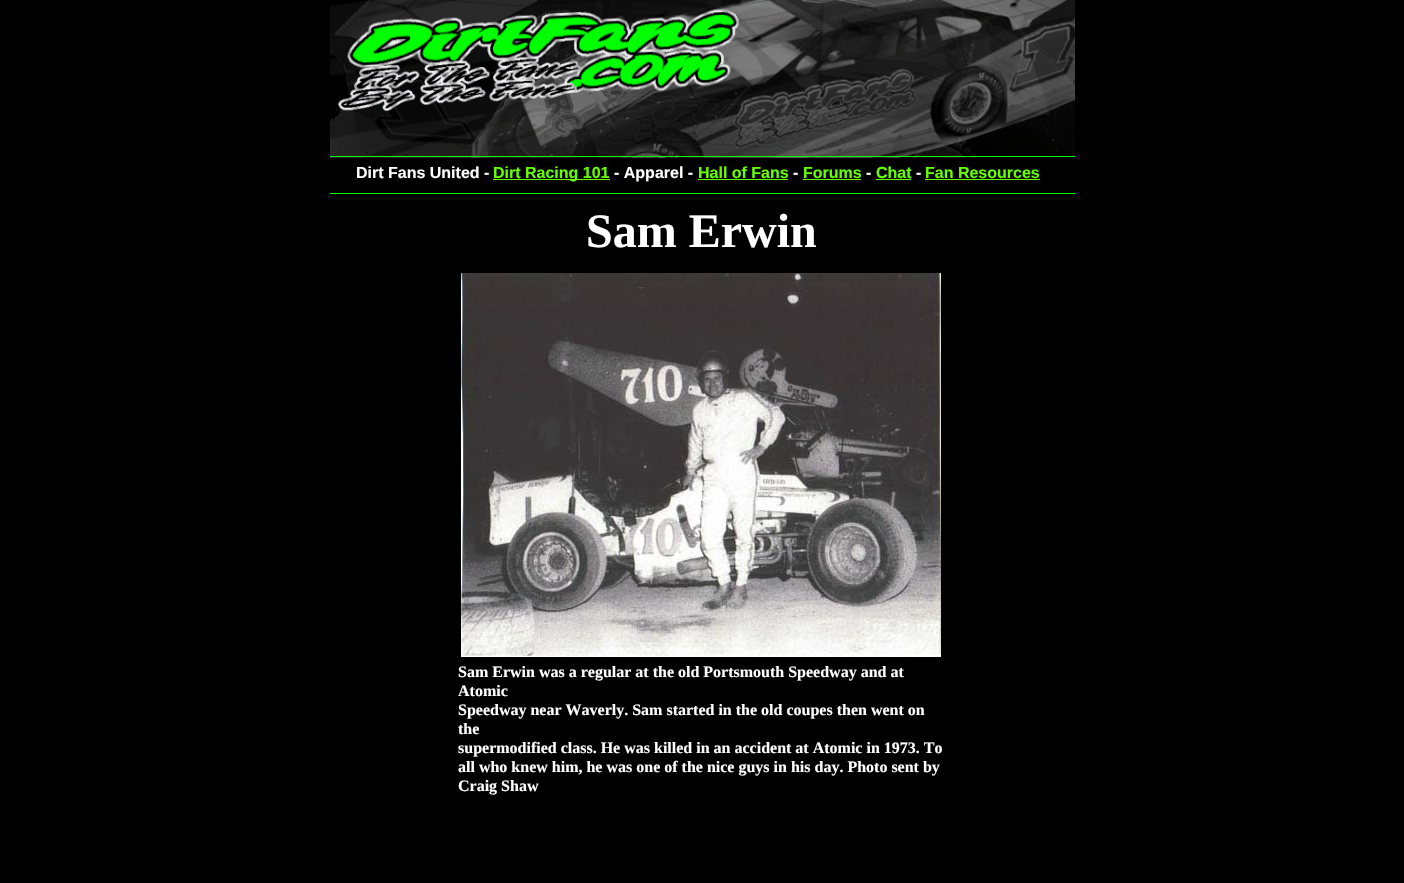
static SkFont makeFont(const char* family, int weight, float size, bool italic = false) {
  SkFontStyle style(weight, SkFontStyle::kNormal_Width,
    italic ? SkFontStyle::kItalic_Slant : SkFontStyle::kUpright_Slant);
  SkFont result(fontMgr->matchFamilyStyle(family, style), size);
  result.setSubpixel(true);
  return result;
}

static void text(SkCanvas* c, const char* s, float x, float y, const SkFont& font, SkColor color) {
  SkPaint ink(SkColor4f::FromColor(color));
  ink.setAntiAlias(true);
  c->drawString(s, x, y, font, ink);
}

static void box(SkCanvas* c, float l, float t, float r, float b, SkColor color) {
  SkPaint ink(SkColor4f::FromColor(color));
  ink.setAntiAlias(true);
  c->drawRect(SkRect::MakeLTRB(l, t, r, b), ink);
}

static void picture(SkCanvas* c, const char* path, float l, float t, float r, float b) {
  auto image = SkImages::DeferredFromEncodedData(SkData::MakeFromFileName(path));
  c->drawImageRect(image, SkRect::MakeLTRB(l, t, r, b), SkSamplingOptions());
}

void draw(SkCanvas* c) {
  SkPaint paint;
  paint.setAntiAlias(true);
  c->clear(0xff000000);
  picture(c, "img_01.png", 330, 0, 1075, 158);
  box(c, 330, 156, 1075, 157, 0xff00ff00);
  SkFont face1 = makeFont("Liberation Sans", 700, 16);
  text(c, "Dirt Fans United -", 356, 178, face1, 0xffffffff);
  box(c, 493, 179, 610, 180, 0xff66ff00);
  text(c, "Dirt Racing 101", 493, 178, face1, 0xff66ff00);
  text(c, "- Apparel -", 614, 178, face1, 0xffffffff);
  text(c, "Hall of Fans", 698, 178, face1, 0xff66ff00);
  box(c, 698, 179, 788, 180, 0xff66ff00);
  text(c, "-", 793, 178, face1, 0xffffffff);
  text(c, "Forums", 803, 178, face1, 0xff66ff00);
  box(c, 803, 179, 861, 180, 0xff66ff00);
  text(c, "-", 866, 178, face1, 0xffffffff);
  text(c, "Chat", 876, 178, face1, 0xff66ff00);
  box(c, 876, 179, 911, 180, 0xff66ff00);
  text(c, "-", 916, 178, face1, 0xffffffff);
  text(c, "Fan Resources", 925, 178, face1, 0xff66ff00);
  box(c, 925, 179, 1040, 180, 0xff66ff00);
  box(c, 330, 193, 1075, 194, 0xff00ff00);
  SkFont face2 = makeFont("Liberation Serif", 700, 48);
  text(c, "Sam Erwin", 586, 247, face2, 0xffffffff);
  picture(c, "img_02.png", 461, 273, 941, 657);
  SkFont face3 = makeFont("Liberation Serif", 700, 16);
  text(c, "Sam Erwin was a regular at the old Portsmouth Speedway and at", 458, 677, face3, 0xffffffff);
  text(c, "Atomic", 458, 696, face3, 0xffffffff);
  text(c, "Speedway near Waverly. Sam started in the old coupes then went on", 458, 715, face3, 0xffffffff);
  text(c, "the", 458, 734, face3, 0xffffffff);
  text(c, "supermodified class. He was killed in an accident at Atomic in 1973. To", 458, 753, face3, 0xffffffff);
  text(c, "all who knew him, he was one of the nice guys in his day. Photo sent by", 458, 772, face3, 0xffffffff);
  text(c, "Craig Shaw", 458, 791, face3, 0xffffffff);
}
